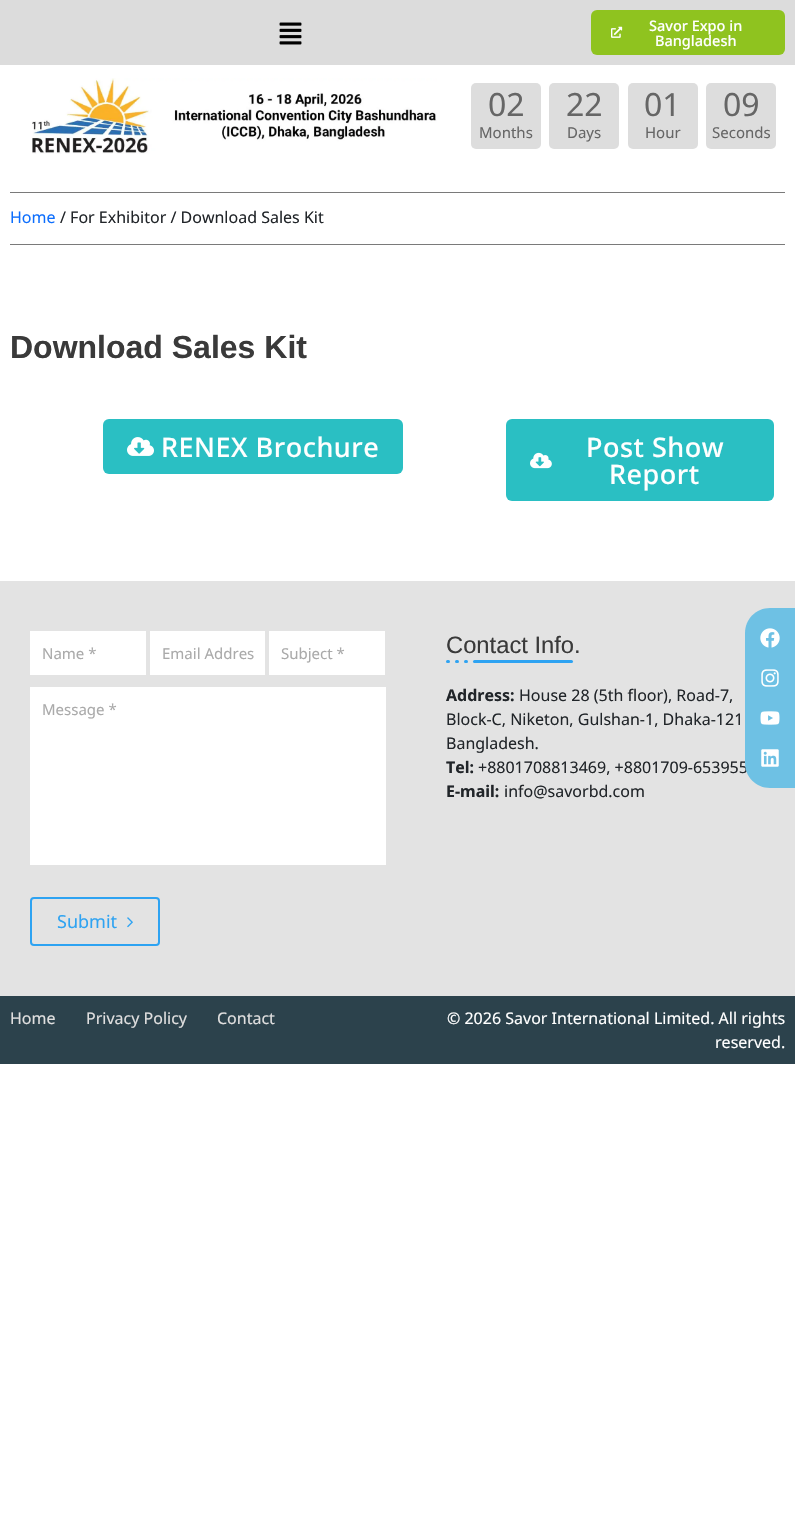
static SkFont makeFont(const char* family, int weight, float size, bool italic = false) {
  SkFontStyle style(weight, SkFontStyle::kNormal_Width,
    italic ? SkFontStyle::kItalic_Slant : SkFontStyle::kUpright_Slant);
  SkFont result(fontMgr->matchFamilyStyle(family, style), size);
  result.setSubpixel(true);
  return result;
}

static void text(SkCanvas* c, const char* s, float x, float y, const SkFont& font, SkColor color) {
  SkPaint ink(SkColor4f::FromColor(color));
  ink.setAntiAlias(true);
  c->drawString(s, x, y, font, ink);
}

static void spacedText(SkCanvas* c, const char* s, float x, float y, const SkFont& font, const SkPaint& ink, float letter, float word) {
  std::vector<SkGlyphID> glyphs(font.countText(s, strlen(s), SkTextEncoding::kUTF8));
  std::vector<float> xs(glyphs.size());
  font.textToGlyphs(s, strlen(s), SkTextEncoding::kUTF8, glyphs);
  font.getXPos(glyphs, xs, x);
  float extra = 0;
  for (size_t i = 0; i < glyphs.size(); i++) {
    xs[i] += extra;
    extra += letter + word * (glyphs[i] == font.unicharToGlyph(' '));
  }
  c->drawTextBlob(SkTextBlob::MakeFromPosHGlyphs(glyphs, xs, y, font), 0, 0, ink);
}

static void box(SkCanvas* c, float l, float t, float r, float b, SkColor color) {
  SkPaint ink(SkColor4f::FromColor(color));
  ink.setAntiAlias(true);
  c->drawRect(SkRect::MakeLTRB(l, t, r, b), ink);
}

static void roundBox(SkCanvas* c, float l, float t, float r, float b, float radius, SkColor color) {
  SkPaint ink(SkColor4f::FromColor(color));
  ink.setAntiAlias(true);
  c->drawRoundRect(SkRect::MakeLTRB(l, t, r, b), radius, radius, ink);
}

static void picture(SkCanvas* c, const char* path, float l, float t, float r, float b) {
  auto image = SkImages::DeferredFromEncodedData(SkData::MakeFromFileName(path));
  c->drawImageRect(image, SkRect::MakeLTRB(l, t, r, b), SkSamplingOptions());
}

void draw(SkCanvas* c) {
  SkPaint paint;
  paint.setAntiAlias(true);
  c->clear(0xffffffff);
  box(c, 0, 0, 795, 65, 0xffdcdcdc);
  picture(c, "img_01.png", 279, 22, 302, 45);
  roundBox(c, 591, 10, 785, 55, 6, 0xff8fc31f);
  picture(c, "img_02.png", 611, 26, 623, 38);
  SkFont face1 = makeFont("Noto Sans", 500, 14.5f);
  text(c, "Savor Expo in", 649, 31, face1, 0xffffffff);
  text(c, "Bangladesh", 655, 46, face1, 0xffffffff);
  picture(c, "img_03.png", 32, 78, 437, 154);
  roundBox(c, 471, 83, 541, 149, 5, 0xffdddddd);
  SkFont face2 = makeFont("Noto Sans", 400, 32);
  text(c, "02", 488, 116, face2, 0xff666666);
  SkFont face3 = makeFont("Noto Sans", 400, 15);
  text(c, "Months", 479, 138, face3, 0xff666666);
  roundBox(c, 549, 83, 619, 149, 5, 0xffdddddd);
  text(c, "22", 566, 116, face2, 0xff666666);
  text(c, "Days", 567, 138, face3, 0xff666666);
  roundBox(c, 628, 83, 698, 149, 5, 0xffdddddd);
  text(c, "01", 644, 116, face2, 0xff666666);
  text(c, "Hour", 645, 138, face3, 0xff666666);
  roundBox(c, 706, 83, 776, 149, 5, 0xffdddddd);
  text(c, "09", 723, 116, face2, 0xff666666);
  text(c, "Seconds", 712, 138, face3, 0xff666666);
  box(c, 10, 192, 785, 193, 0xff7a7a7a);
  SkFont face4 = makeFont("Noto Sans", 400, 16);
  text(c, "Home", 10, 223, face4, 0xff0d6efd);
  text(c, "/ For Exhibitor / Download Sales Kit", 60, 223, face4, 0xff212529);
  box(c, 10, 244, 785, 245, 0xff7a7a7a);
  SkFont face5 = makeFont("Liberation Sans", 700, 32);
  text(c, "Download Sales Kit", 10, 358, face5, 0xff3a3a3a);
  roundBox(c, 103, 419, 403, 474, 6, 0xff2abfc3);
  picture(c, "img_04.png", 127, 437, 154, 456);
  SkFont face6 = makeFont("Noto Sans", 500, 27);
  paint.setColor(0xffffffff);
  spacedText(c, "RENEX Brochure", 161, 457, face6, paint, 0.5f, 0);
  roundBox(c, 506, 419, 774, 501, 6, 0xff2abfc3);
  picture(c, "img_05.png", 530, 452, 552, 469);
  spacedText(c, "Post Show", 586, 457, face6, paint, 0.5f, 0);
  spacedText(c, "Report", 609, 484, face6, paint, 0.5f, 0);
  box(c, 0, 581, 795, 996, 0xffe3e3e3);
  text(c, "+8801708813469, +8801709-653955", 478, 773, face4, 0xff212529);
  paint.setColor(0xff6ec1e4);
  c->drawPath(SkPathBuilder().moveTo(770, 608).lineTo(795, 608).lineTo(795, 788).lineTo(770, 788).cubicTo(756, 788, 745, 777, 745, 763).lineTo(745, 633).cubicTo(745, 619, 756, 608, 770, 608).close().detach(), paint);
  picture(c, "img_06.png", 760, 628, 780, 648);
  picture(c, "img_07.png", 761, 669, 779, 687);
  picture(c, "img_08.png", 760, 711, 780, 725);
  picture(c, "img_09.png", 761, 749, 779, 767);
  box(c, 30, 631, 146, 675, 0xffffffff);
  text(c, "Name *", 42, 659, face3, 0xffaaaaaa);
  box(c, 150, 631, 265, 675, 0xffffffff);
  text(c, "Email Addres", 162, 659, face3, 0xffaaaaaa);
  box(c, 269, 631, 385, 675, 0xffffffff);
  text(c, "Subject *", 281, 659, face3, 0xffaaaaaa);
  box(c, 30, 687, 386, 865, 0xffffffff);
  text(c, "Message *", 42, 715, face3, 0xffaaaaaa);
  paint.setStyle(SkPaint::kStroke_Style);
  paint.setStrokeWidth(2);
  paint.setColor(0xff2ea3f2);
  c->drawRoundRect(SkRect::MakeLTRB(31, 898, 159, 945), 3, 3, paint);
  SkFont face7 = makeFont("Noto Sans", 400, 18);
  text(c, "Submit", 57, 928, face7, 0xff2ea3f2);
  picture(c, "img_10.png", 127, 917, 133, 928);
  SkFont face8 = makeFont("Liberation Sans", 400, 23.75f);
  text(c, "Contact Info.", 446, 653, face8, 0xff3a3a3a);
  roundBox(c, 473, 660, 573, 663, 1.5f, 0xff2ea3f2);
  roundBox(c, 464, 660, 468, 663, 1.5f, 0xff2ea3f2);
  roundBox(c, 455, 660, 459, 663, 1.5f, 0xff2ea3f2);
  roundBox(c, 446, 660, 450, 663, 1.5f, 0xff2ea3f2);
  SkFont face9 = makeFont("Noto Sans", 700, 16);
  text(c, "Address:", 446, 701, face9, 0xff212529);
  text(c, "House 28 (5th floor), Road-7,", 519, 701, face4, 0xff212529);
  text(c, "Block-C, Niketon, Gulshan-1, Dhaka-121", 446, 725, face4, 0xff212529);
  text(c, "Bangladesh.", 446, 749, face4, 0xff212529);
  text(c, "Tel:", 446, 773, face9, 0xff212529);
  text(c, "E-mail:", 446, 797, face9, 0xff212529);
  text(c, "info@savorbd.com", 504, 797, face4, 0xff212529);
  box(c, 0, 996, 795, 1064, 0xff2c424c);
  text(c, "Home", 10, 1024, face4, 0xffe0dfdf);
  text(c, "Privacy Policy", 86, 1024, face4, 0xffe0dfdf);
  text(c, "Contact", 217, 1024, face4, 0xffe0dfdf);
  text(c, "© 2026 Savor International Limited. All rights", 447, 1024, face4, 0xffffffff);
  text(c, "reserved.", 715, 1048, face4, 0xffffffff);
}
